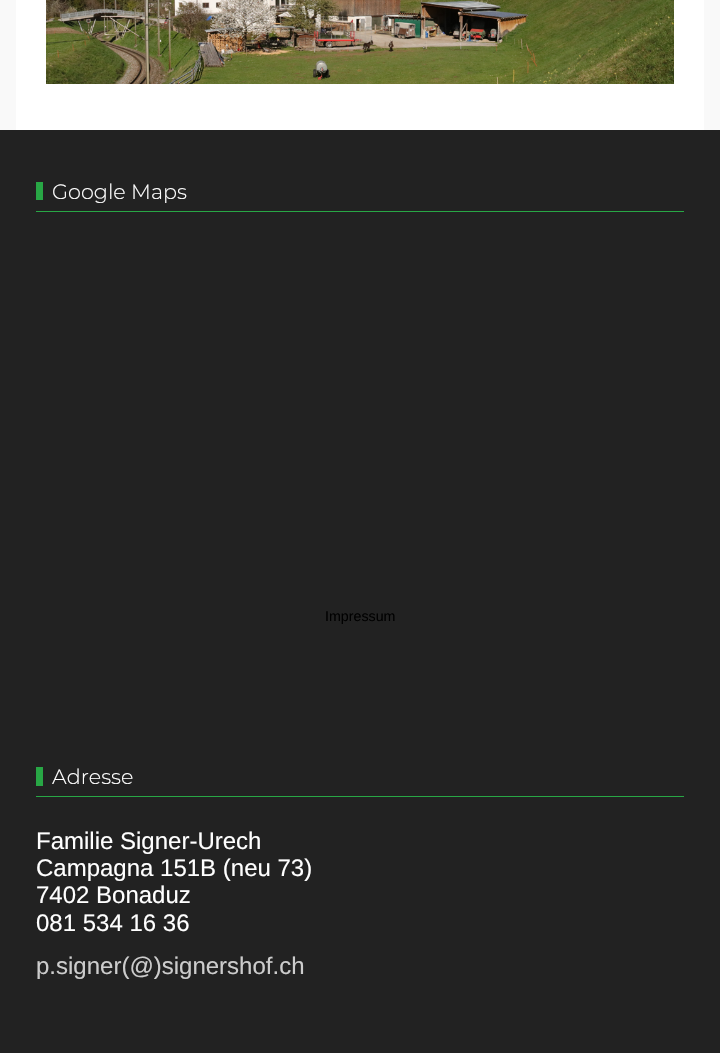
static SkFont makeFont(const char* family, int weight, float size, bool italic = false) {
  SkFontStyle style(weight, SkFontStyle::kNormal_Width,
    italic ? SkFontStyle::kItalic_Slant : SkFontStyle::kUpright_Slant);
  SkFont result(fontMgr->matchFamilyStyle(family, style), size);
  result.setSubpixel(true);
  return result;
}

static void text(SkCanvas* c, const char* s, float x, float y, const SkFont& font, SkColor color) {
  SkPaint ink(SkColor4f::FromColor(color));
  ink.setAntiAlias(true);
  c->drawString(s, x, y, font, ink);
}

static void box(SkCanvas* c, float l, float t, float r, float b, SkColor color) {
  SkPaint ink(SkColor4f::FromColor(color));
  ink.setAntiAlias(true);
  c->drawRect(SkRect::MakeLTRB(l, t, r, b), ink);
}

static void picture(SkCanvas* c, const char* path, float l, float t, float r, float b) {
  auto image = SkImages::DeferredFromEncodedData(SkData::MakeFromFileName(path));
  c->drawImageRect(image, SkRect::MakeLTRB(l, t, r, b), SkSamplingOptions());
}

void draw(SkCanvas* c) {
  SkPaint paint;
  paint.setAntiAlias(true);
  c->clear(0xfff9f9f9);
  box(c, 16, 0, 704, 130, 0xffffffff);
  picture(c, "img_01.png", 46, 0, 674, 84);
  box(c, 0, 130, 720, 1053, 0xff222222);
  box(c, 36, 211, 684, 212, 0xff28a745);
  box(c, 36, 182, 43, 200, 0xff28a745);
  SkFont face1 = makeFont("Montserrat", 300, 20.75f);
  text(c, "Google Maps", 52, 199, face1, 0xffffffff);
  box(c, 36, 796, 684, 797, 0xff28a745);
  box(c, 36, 767, 43, 786, 0xff28a745);
  text(c, "Adresse", 52, 784, face1, 0xffffffff);
  SkFont face2 = makeFont("Liberation Sans", 400, 24);
  text(c, "Familie Signer-Urech", 36, 849, face2, 0xffffffff);
  text(c, "Campagna 151B (neu 73)", 36, 876, face2, 0xffffffff);
  text(c, "7402 Bonaduz", 36, 903, face2, 0xffffffff);
  text(c, "081 534 16 36", 36, 931, face2, 0xffffffff);
  text(c, "p.signer(@)signershof.ch", 36, 974, face2, 0xffcccccc);
  SkFont face3 = makeFont("Liberation Sans", 400, 14.25f);
  text(c, "Impressum", 325, 621, face3, 0xff000000);
}
